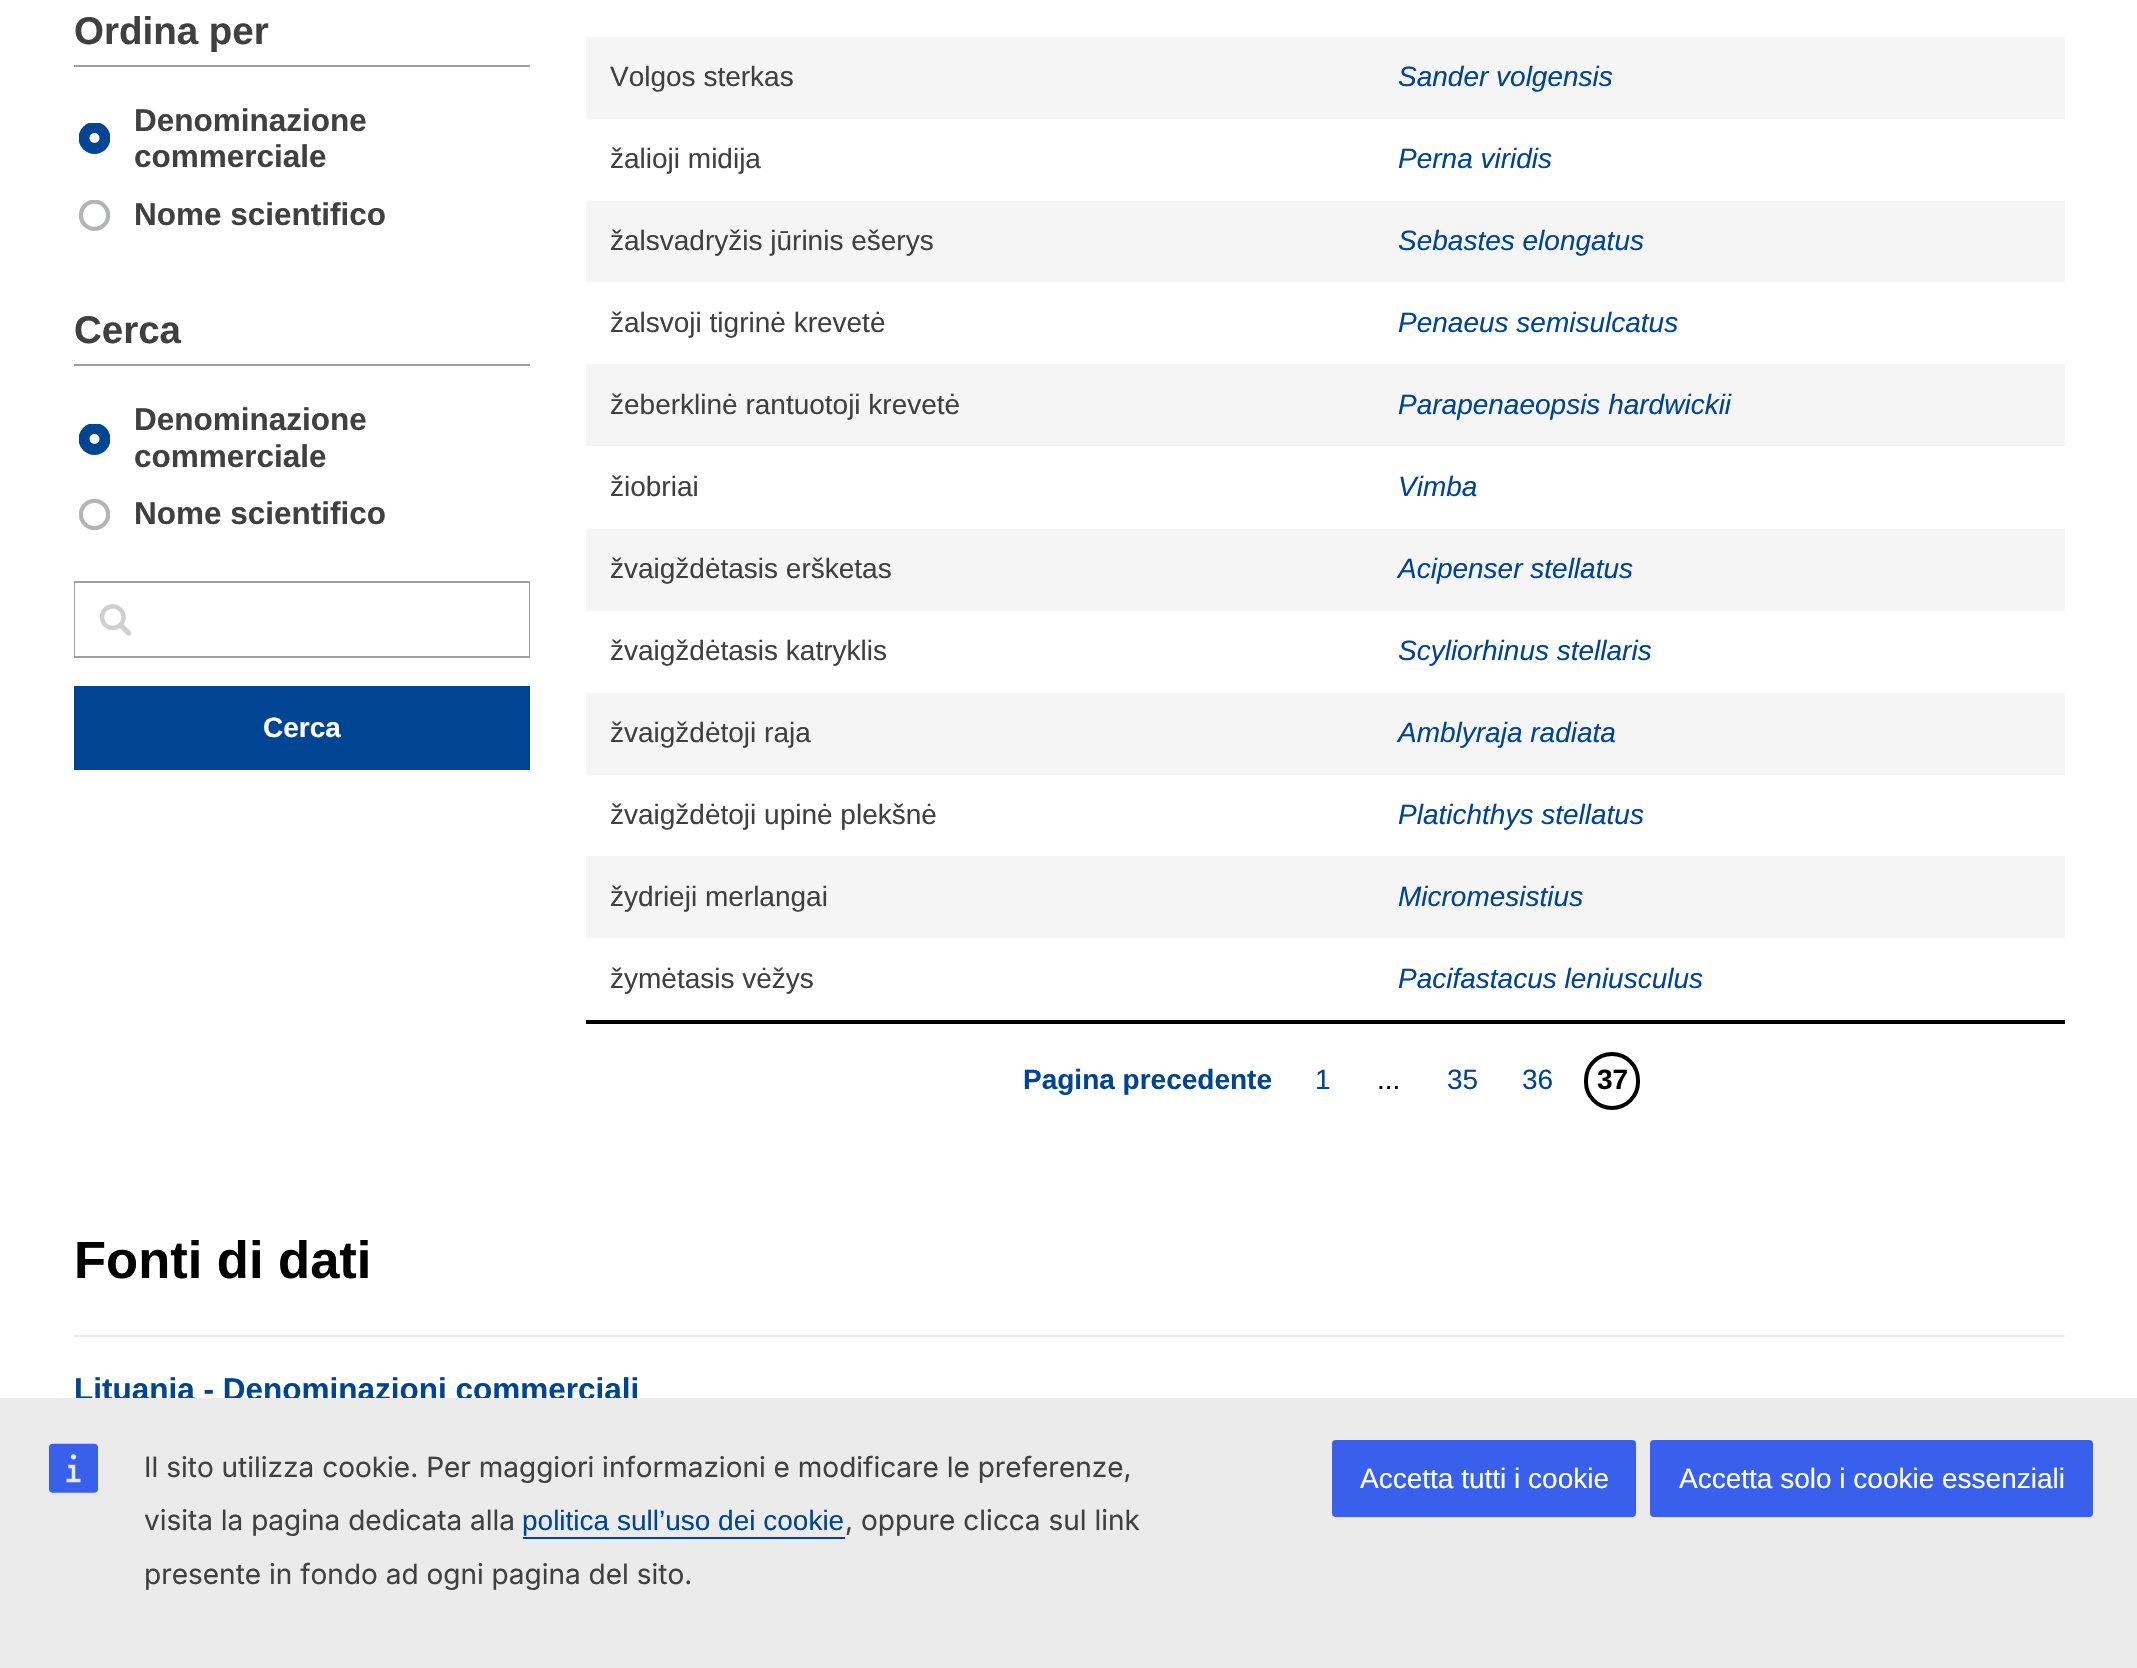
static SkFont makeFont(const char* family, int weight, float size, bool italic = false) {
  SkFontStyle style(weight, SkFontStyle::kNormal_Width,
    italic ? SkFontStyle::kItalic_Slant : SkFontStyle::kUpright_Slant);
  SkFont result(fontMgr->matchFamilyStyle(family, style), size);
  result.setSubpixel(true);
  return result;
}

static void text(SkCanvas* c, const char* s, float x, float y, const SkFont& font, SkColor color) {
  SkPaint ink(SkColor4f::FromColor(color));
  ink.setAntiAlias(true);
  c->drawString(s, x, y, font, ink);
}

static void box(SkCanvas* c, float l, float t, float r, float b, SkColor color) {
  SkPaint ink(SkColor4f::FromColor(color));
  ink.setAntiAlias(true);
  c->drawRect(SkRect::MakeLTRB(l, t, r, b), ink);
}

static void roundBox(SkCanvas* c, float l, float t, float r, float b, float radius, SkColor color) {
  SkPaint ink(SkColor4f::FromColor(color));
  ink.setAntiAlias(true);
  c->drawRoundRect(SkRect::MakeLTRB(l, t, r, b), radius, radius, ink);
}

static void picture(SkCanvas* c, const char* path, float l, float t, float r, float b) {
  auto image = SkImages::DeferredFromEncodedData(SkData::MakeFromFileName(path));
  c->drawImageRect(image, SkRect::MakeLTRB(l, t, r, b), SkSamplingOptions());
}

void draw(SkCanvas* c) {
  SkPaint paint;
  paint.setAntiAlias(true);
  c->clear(0xffffffff);
  box(c, 74, 65, 530, 67, 0xff9f9f9f);
  SkFont face1 = makeFont("Liberation Sans", 700, 38.5f);
  text(c, "Ordina per", 74, 44, face1, 0xff404040);
  SkFont face2 = makeFont("Liberation Sans", 700, 31.5f);
  text(c, "Denominazione", 134, 131, face2, 0xff404040);
  c->save();
  c->clipRect(SkRect::MakeLTRB(79, 123, 110, 154));
  paint.setColor(0xff004494);
  c->drawCircle(94.5f, 138, 16, paint);
  c->restore();
  paint.setColor(0xffffffff);
  c->drawCircle(94.5f, 138, 5, paint);
  text(c, "commerciale", 134, 167, face2, 0xff404040);
  picture(c, "img_01.png", 79, 200, 110, 231);
  text(c, "Nome scientifico", 134, 225, face2, 0xff404040);
  box(c, 74, 364, 530, 366, 0xff9f9f9f);
  text(c, "Cerca", 74, 343, face1, 0xff404040);
  text(c, "Denominazione", 134, 430, face2, 0xff404040);
  c->save();
  c->clipRect(SkRect::MakeLTRB(79, 424, 110, 455));
  paint.setColor(0xff004494);
  c->drawCircle(94.5f, 439, 16, paint);
  c->restore();
  paint.setColor(0xffffffff);
  c->drawCircle(94.5f, 439, 5, paint);
  text(c, "commerciale", 134, 467, face2, 0xff404040);
  picture(c, "img_02.png", 79, 499, 110, 530);
  text(c, "Nome scientifico", 134, 524, face2, 0xff404040);
  paint.setStyle(SkPaint::kStroke_Style);
  paint.setStrokeWidth(2);
  paint.setColor(0xff9f9f9f);
  c->drawRect(SkRect::MakeLTRB(75, 582, 529, 657), paint);
  box(c, 75, 583, 529, 656, 0xffffffff);
  picture(c, "img_03.png", 99, 604, 132, 636);
  box(c, 74, 686, 530, 770, 0xff004494);
  SkFont face3 = makeFont("Liberation Sans", 700, 28);
  text(c, "Cerca", 263, 737, face3, 0xffffffff);
  box(c, 586, 37, 2065, 119, 0xfff5f5f5);
  SkFont face4 = makeFont("Liberation Sans", 400, 28);
  text(c, "Volgos sterkas", 610, 86, face4, 0xff404040);
  SkFont face5 = makeFont("Liberation Sans", 400, 28, true);
  text(c, "Sander volgensis", 1398, 86, face5, 0xff004494);
  text(c, "žalioji midija", 610, 168, face4, 0xff404040);
  text(c, "Perna viridis", 1398, 168, face5, 0xff004494);
  box(c, 586, 201, 2065, 282, 0xfff5f5f5);
  text(c, "žalsvadryžis jūrinis ešerys", 610, 250, face4, 0xff404040);
  text(c, "Sebastes elongatus", 1398, 250, face5, 0xff004494);
  text(c, "žalsvoji tigrinė krevetė", 610, 332, face4, 0xff404040);
  text(c, "Penaeus semisulcatus", 1398, 332, face5, 0xff004494);
  box(c, 586, 364, 2065, 446, 0xfff5f5f5);
  text(c, "žeberklinė rantuotoji krevetė", 610, 414, face4, 0xff404040);
  text(c, "Parapenaeopsis hardwickii", 1398, 414, face5, 0xff004494);
  text(c, "žiobriai", 610, 496, face4, 0xff404040);
  text(c, "Vimba", 1398, 496, face5, 0xff004494);
  box(c, 586, 529, 2065, 611, 0xfff5f5f5);
  text(c, "žvaigždėtasis eršketas", 610, 578, face4, 0xff404040);
  text(c, "Acipenser stellatus", 1398, 578, face5, 0xff004494);
  text(c, "žvaigždėtasis katryklis", 610, 660, face4, 0xff404040);
  text(c, "Scyliorhinus stellaris", 1398, 660, face5, 0xff004494);
  box(c, 586, 693, 2065, 775, 0xfff5f5f5);
  text(c, "žvaigždėtoji raja", 610, 742, face4, 0xff404040);
  text(c, "Amblyraja radiata", 1398, 742, face5, 0xff004494);
  text(c, "žvaigždėtoji upinė plekšnė", 610, 824, face4, 0xff404040);
  text(c, "Platichthys stellatus", 1398, 824, face5, 0xff004494);
  box(c, 586, 856, 2065, 938, 0xfff5f5f5);
  text(c, "žydrieji merlangai", 610, 906, face4, 0xff404040);
  text(c, "Micromesistius", 1398, 906, face5, 0xff004494);
  text(c, "žymėtasis vėžys", 610, 988, face4, 0xff404040);
  text(c, "Pacifastacus leniusculus", 1398, 988, face5, 0xff004494);
  box(c, 586, 1020, 2065, 1024, 0xff000000);
  text(c, "Pagina precedente", 1023, 1089, face3, 0xff004494);
  text(c, "1", 1315, 1089, face4, 0xff004494);
  text(c, "...", 1377, 1089, face4, 0xff000000);
  text(c, "35", 1447, 1089, face4, 0xff004494);
  text(c, "36", 1522, 1089, face4, 0xff004494);
  paint.setStrokeWidth(4);
  paint.setColor(0xff000000);
  c->drawRoundRect(SkRect::MakeLTRB(1586, 1054, 1638, 1108), 26, 26, paint);
  text(c, "37", 1597, 1089, face3, 0xff000000);
  SkFont face6 = makeFont("Liberation Sans", 700, 52.5f);
  text(c, "Fonti di dati", 74, 1278, face6, 0xff000000);
  box(c, 74, 1335, 2065, 1337, 0xffebebeb);
  text(c, "Lituania - Denominazioni commerciali", 74, 1400, face2, 0xff004494);
  box(c, 0, 1398, 2137, 1668, 0xffebebeb);
  picture(c, "img_04.png", 49, 1443, 98, 1493);
  SkFont face7 = makeFont("Inter", 400, 28);
  text(c, "Il sito utilizza cookie. Per maggiori informazioni e modificare le preferenze,", 144, 1477, face7, 0xff404040);
  text(c, "visita la pagina dedicata alla", 144, 1530, face7, 0xff404040);
  text(c, "politica sull’uso dei cookie", 522, 1530, face4, 0xff004494);
  box(c, 523, 1537, 845, 1539, 0xff004494);
  text(c, ", oppure clicca sul link", 845, 1530, face7, 0xff404040);
  text(c, "presente in fondo ad ogni pagina del sito.", 144, 1584, face7, 0xff404040);
  roundBox(c, 1332, 1440, 1636, 1517, 4, 0xff3860ed);
  text(c, "Accetta tutti i cookie", 1360, 1488, face4, 0xffffffff);
  roundBox(c, 1650, 1440, 2093, 1517, 4, 0xff3860ed);
  text(c, "Accetta solo i cookie essenziali", 1679, 1488, face4, 0xffffffff);
}
